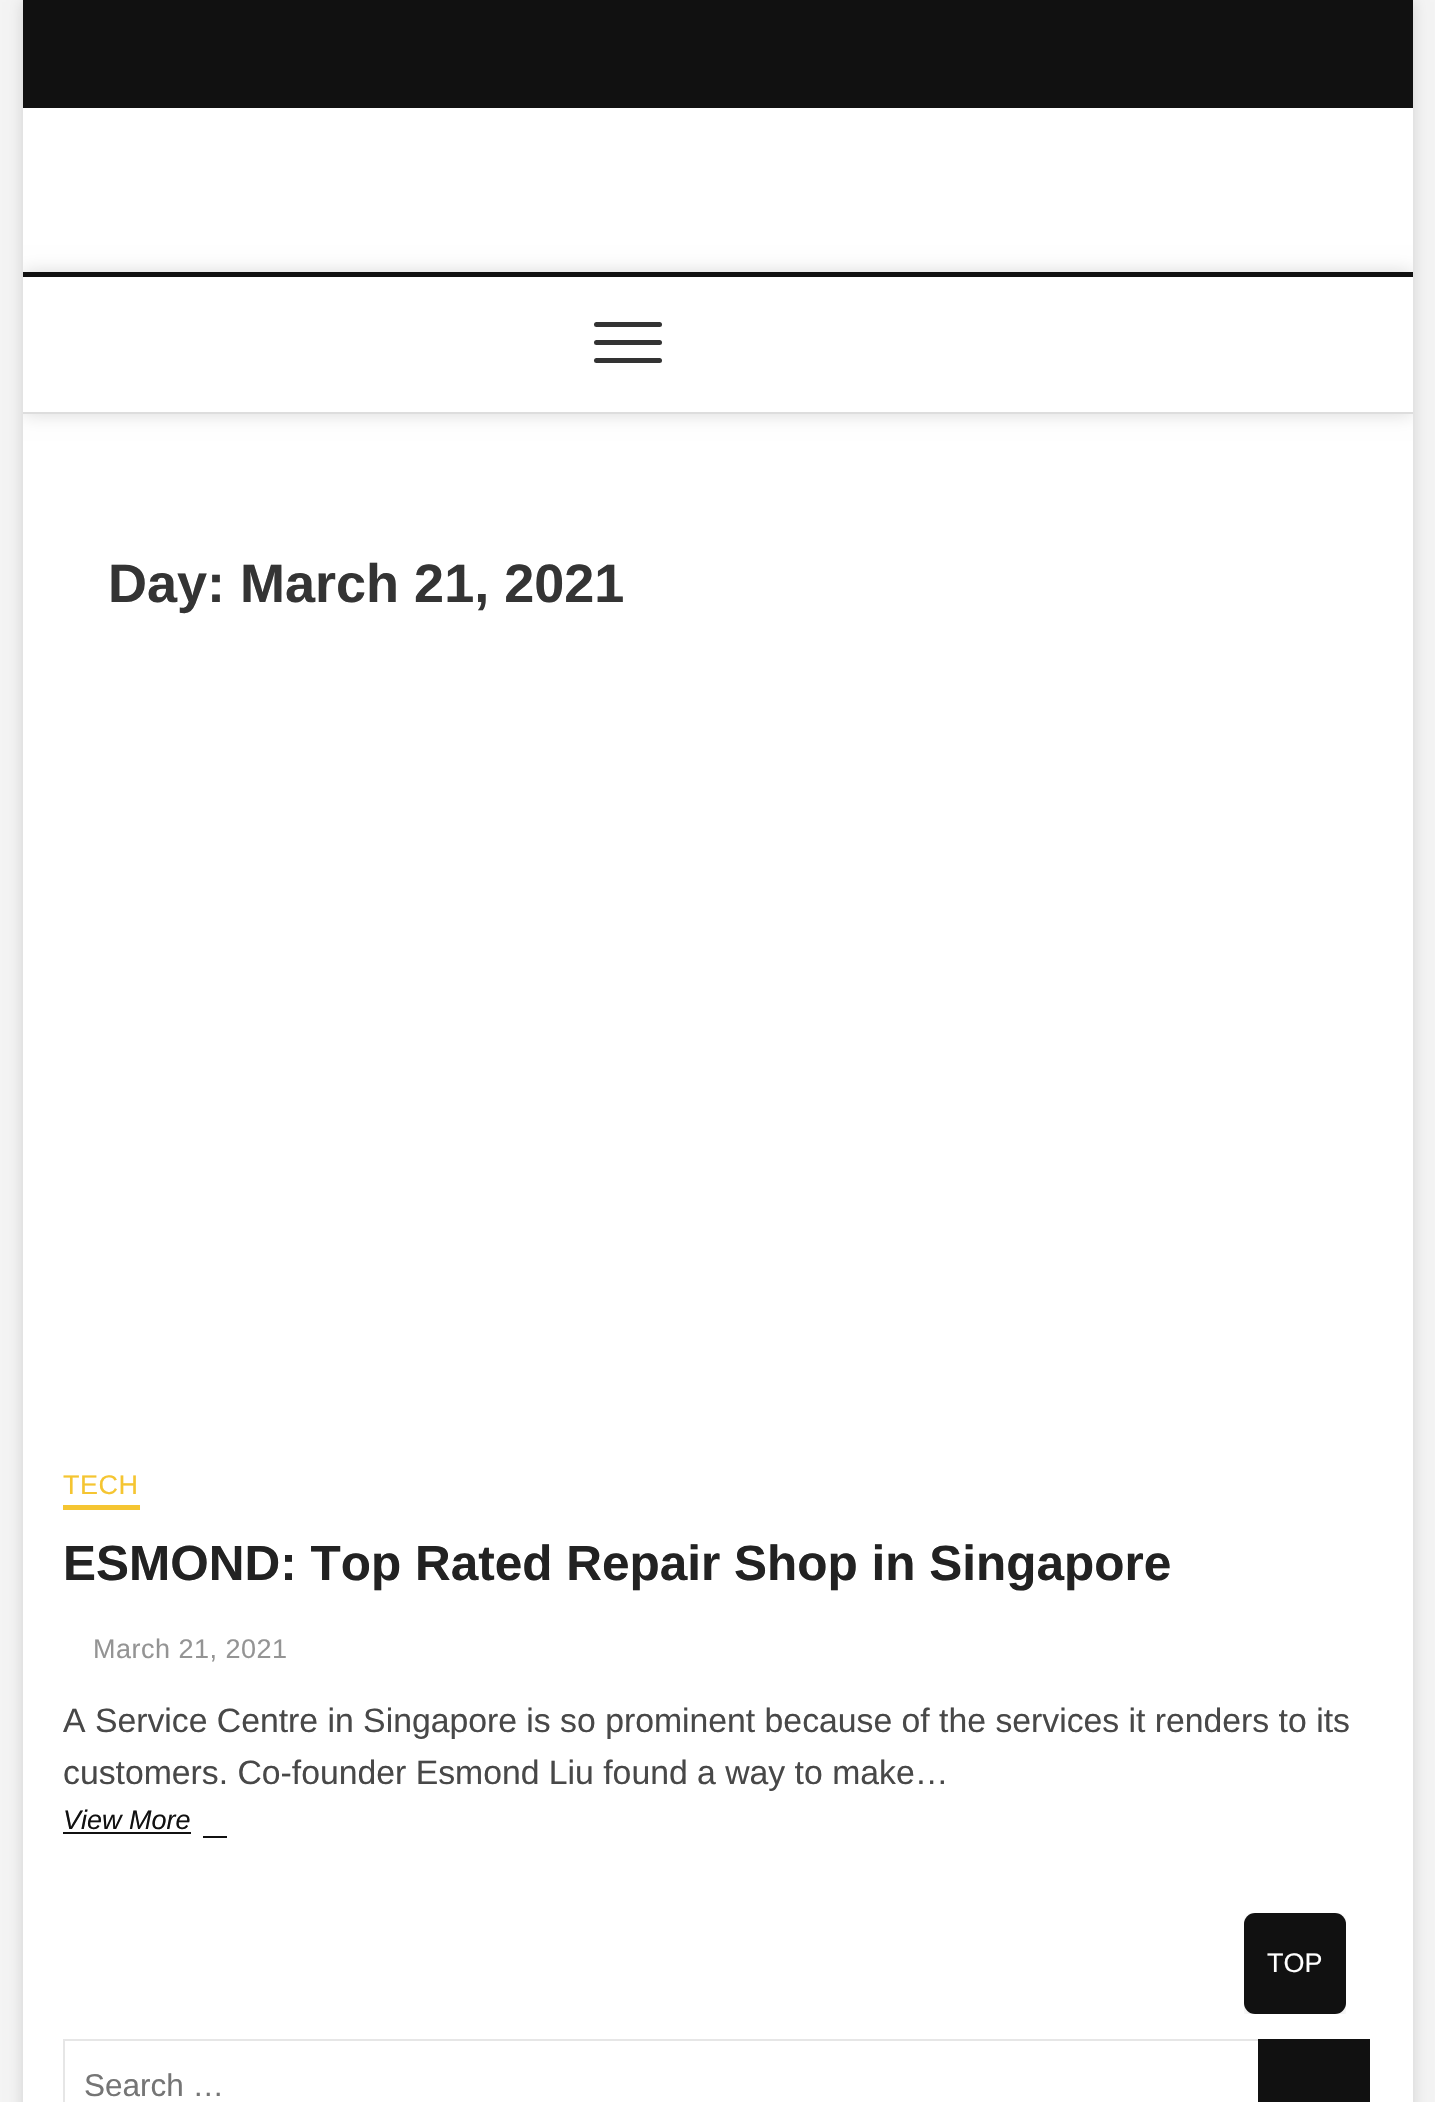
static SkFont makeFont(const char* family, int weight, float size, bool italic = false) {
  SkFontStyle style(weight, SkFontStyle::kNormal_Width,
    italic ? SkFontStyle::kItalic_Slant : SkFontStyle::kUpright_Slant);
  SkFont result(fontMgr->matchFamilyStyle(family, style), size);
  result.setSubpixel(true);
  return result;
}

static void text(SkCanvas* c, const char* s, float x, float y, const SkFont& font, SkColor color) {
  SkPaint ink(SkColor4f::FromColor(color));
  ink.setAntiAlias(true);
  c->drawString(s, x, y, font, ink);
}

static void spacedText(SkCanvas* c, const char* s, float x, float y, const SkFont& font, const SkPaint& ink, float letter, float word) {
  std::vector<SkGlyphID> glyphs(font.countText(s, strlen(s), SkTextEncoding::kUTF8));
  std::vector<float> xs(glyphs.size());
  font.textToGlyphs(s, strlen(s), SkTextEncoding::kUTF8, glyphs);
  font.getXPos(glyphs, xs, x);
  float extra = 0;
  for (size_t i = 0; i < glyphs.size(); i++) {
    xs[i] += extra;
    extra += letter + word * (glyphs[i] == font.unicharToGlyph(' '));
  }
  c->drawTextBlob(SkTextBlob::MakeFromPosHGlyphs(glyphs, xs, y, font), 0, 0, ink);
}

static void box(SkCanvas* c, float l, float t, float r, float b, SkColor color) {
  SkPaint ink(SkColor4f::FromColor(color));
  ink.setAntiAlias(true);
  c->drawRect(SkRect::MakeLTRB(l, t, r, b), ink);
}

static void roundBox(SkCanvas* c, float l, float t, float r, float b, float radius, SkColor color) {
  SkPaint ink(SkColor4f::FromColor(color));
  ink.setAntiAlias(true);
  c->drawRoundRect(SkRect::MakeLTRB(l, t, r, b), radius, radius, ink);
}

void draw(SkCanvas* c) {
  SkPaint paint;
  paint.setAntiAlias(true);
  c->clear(0xfff4f4f4);
  paint.setColor(0x26000000);
  paint.setMaskFilter(SkMaskFilter::MakeBlur(kNormal_SkBlurStyle, 7));
  c->drawRect(SkRect::MakeLTRB(23, 2, 1413, 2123), paint);
  paint.setMaskFilter(nullptr);
  box(c, 23, 108, 1413, 2102, 0xffffffff);
  box(c, 23, 0, 1413, 108, 0xff111111);
  c->save();
  c->clipRect(SkRect::MakeLTRB(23, 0, 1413, 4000));
  paint.setMaskFilter(SkMaskFilter::MakeBlur(kNormal_SkBlurStyle, 9));
  c->drawRect(SkRect::MakeLTRB(23, 272, 1413, 414), paint);
  paint.setMaskFilter(nullptr);
  c->restore();
  box(c, 23, 277, 1413, 412, 0xffffffff);
  box(c, 23, 272, 1413, 277, 0xff111111);
  box(c, 23, 412, 1413, 414, 0xffdddddd);
  roundBox(c, 594, 340, 662, 345, 2.5f, 0xff333333);
  roundBox(c, 594, 322, 662, 327, 2.5f, 0xff333333);
  roundBox(c, 594, 358, 662, 363, 2.5f, 0xff333333);
  SkFont face1 = makeFont("Liberation Sans", 700, 54);
  text(c, "Day: March 21, 2021", 108, 602, face1, 0xff343434);
  SkFont face2 = makeFont("Liberation Sans", 400, 27);
  paint.setColor(0xfff5c531);
  spacedText(c, "TECH", 63, 1494, face2, paint, 0.5f, 0);
  box(c, 63, 1505, 140, 1510, 0xfff5c531);
  SkFont face3 = makeFont("Liberation Sans", 700, 49.5f);
  text(c, "ESMOND: Top Rated Repair Shop in Singapore", 63, 1580, face3, 0xff222222);
  paint.setColor(0xff949494);
  spacedText(c, "March 21, 2021", 93, 1658, face2, paint, 0.5f, 0);
  SkFont face4 = makeFont("Liberation Sans", 400, 33.75f);
  text(c, "A Service Centre in Singapore is so prominent because of the services it renders to its", 63, 1732, face4, 0xff484848);
  text(c, "customers. Co-founder Esmond Liu found a way to make…", 63, 1784, face4, 0xff484848);
  SkFont face5 = makeFont("Liberation Sans", 400, 27, true);
  text(c, "View More", 63, 1829, face5, 0xff111111);
  box(c, 63, 1832, 191, 1834, 0xff111111);
  box(c, 203, 1836, 227, 1838, 0xff111111);
  paint.setStyle(SkPaint::kStroke_Style);
  paint.setStrokeWidth(2);
  paint.setColor(0xffe6e6e6);
  c->drawRect(SkRect::MakeLTRB(64, 2040, 1259, 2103), paint);
  SkFont face6 = makeFont("Liberation Sans", 400, 31.5f);
  text(c, "Search …", 84, 2096, face6, 0xff757575);
  box(c, 1258, 2039, 1370, 2102, 0xff111111);
  c->save();
  c->clipRect(SkRect::MakeLTRB(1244, 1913, 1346, 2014));
  paint.setStyle(SkPaint::kFill_Style);
  paint.setColor(0x14000000);
  paint.setMaskFilter(SkMaskFilter::MakeBlur(kNormal_SkBlurStyle, 3.5f));
  c->drawRoundRect(SkRect::MakeLTRB(1244, 1917, 1346, 2018), 11, 11, paint);
  paint.setMaskFilter(nullptr);
  c->restore();
  roundBox(c, 1244, 1913, 1346, 2014, 11, 0xff111111);
  text(c, "TOP", 1267, 1972, face2, 0xffffffff);
}
